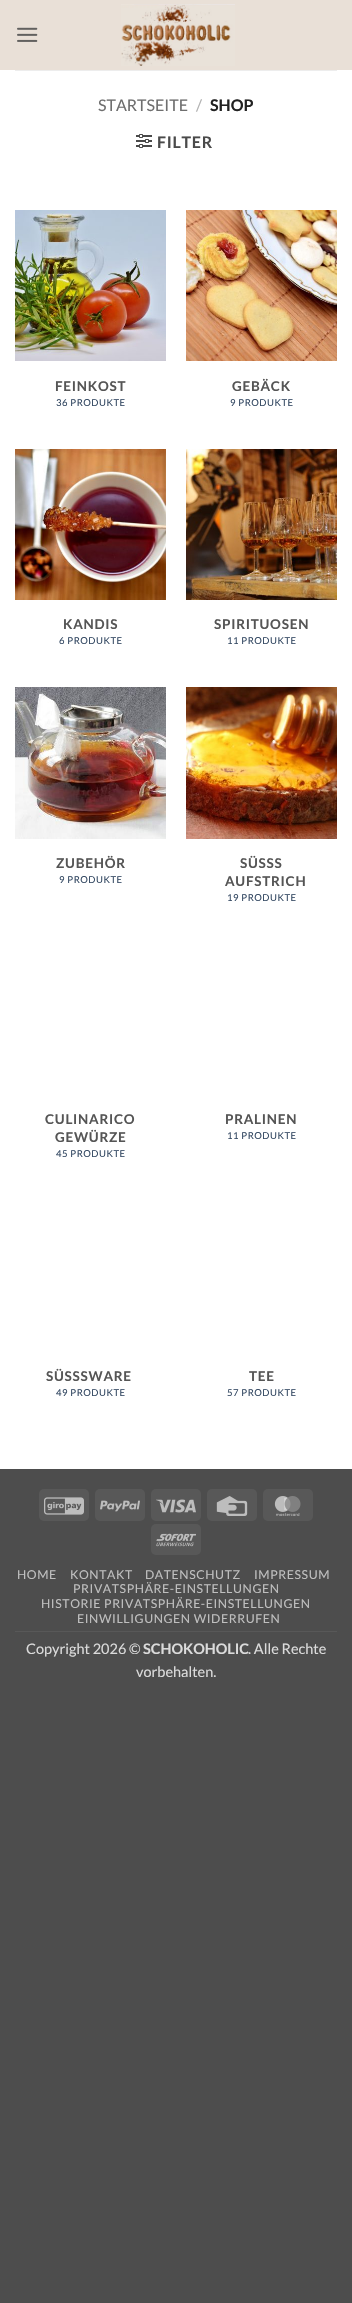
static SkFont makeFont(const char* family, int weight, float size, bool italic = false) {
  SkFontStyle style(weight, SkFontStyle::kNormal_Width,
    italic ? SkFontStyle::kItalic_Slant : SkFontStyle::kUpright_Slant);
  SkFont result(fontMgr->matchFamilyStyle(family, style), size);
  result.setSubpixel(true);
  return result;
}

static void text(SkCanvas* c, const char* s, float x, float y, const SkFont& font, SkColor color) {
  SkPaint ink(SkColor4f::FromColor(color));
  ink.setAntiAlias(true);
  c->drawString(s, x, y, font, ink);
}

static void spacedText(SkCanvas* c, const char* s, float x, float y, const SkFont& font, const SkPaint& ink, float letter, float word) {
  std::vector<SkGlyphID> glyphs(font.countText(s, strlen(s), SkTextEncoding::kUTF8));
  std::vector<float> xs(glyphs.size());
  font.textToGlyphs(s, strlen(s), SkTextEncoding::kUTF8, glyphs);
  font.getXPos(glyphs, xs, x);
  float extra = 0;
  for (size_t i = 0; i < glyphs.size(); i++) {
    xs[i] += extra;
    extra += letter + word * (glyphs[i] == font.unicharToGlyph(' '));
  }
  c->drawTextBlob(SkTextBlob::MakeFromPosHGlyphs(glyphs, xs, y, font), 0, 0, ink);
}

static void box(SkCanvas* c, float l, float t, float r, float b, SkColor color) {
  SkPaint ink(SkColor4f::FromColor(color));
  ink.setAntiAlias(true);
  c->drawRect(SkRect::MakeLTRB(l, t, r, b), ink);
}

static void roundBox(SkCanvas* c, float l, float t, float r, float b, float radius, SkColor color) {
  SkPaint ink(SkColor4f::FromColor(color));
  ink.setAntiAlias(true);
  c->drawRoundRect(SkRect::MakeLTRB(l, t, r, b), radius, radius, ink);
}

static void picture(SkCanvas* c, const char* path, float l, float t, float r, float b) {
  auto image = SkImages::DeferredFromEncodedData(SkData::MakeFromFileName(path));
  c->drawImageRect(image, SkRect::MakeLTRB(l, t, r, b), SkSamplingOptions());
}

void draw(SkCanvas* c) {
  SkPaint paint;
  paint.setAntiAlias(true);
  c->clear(0xff4d4d4d);
  box(c, 0, 70, 352, 1469, 0xffffffff);
  box(c, 0, 0, 352, 70, 0xffe9e0d7);
  picture(c, "img_01.png", 17, 27, 38, 42);
  picture(c, "img_02.png", 121, 4, 235, 66);
  box(c, 15, 70, 337, 71, 0xffededed);
  SkFont face1 = makeFont("Lato", 400, 16);
  text(c, "STARTSEITE", 98, 111, face1, 0xff6e6e6e);
  text(c, "/", 196, 111, face1, 0xffb2b2b2);
  SkFont face2 = makeFont("Lato", 700, 16);
  text(c, "SHOP", 210, 111, face2, 0xff222222);
  picture(c, "img_03.png", 136, 134, 152, 148);
  paint.setColor(0xff4a4a4a);
  spacedText(c, "FILTER", 157, 148, face2, paint, 0.75f, 0);
  picture(c, "img_04.png", 15, 210, 166, 361);
  SkFont face3 = makeFont("Lato", 700, 13.5f);
  paint.setColor(0xff555555);
  spacedText(c, "FEINKOST", 55, 391, face3, paint, 0.75f, 0);
  SkFont face4 = makeFont("Lato", 400, 9.5f);
  paint.setColor(0xff334862);
  spacedText(c, "36 PRODUKTE", 56, 406, face4, paint, 0.5f, 0);
  picture(c, "img_05.png", 186, 210, 337, 361);
  paint.setColor(0xff555555);
  spacedText(c, "GEBÄCK", 232, 391, face3, paint, 0.75f, 0);
  paint.setColor(0xff334862);
  spacedText(c, "9 PRODUKTE", 230, 406, face4, paint, 0.5f, 0);
  picture(c, "img_06.png", 15, 449, 166, 600);
  paint.setColor(0xff555555);
  spacedText(c, "KANDIS", 63, 629, face3, paint, 0.75f, 0);
  paint.setColor(0xff334862);
  spacedText(c, "6 PRODUKTE", 59, 644, face4, paint, 0.5f, 0);
  picture(c, "img_07.png", 186, 449, 337, 600);
  paint.setColor(0xff555555);
  spacedText(c, "SPIRITUOSEN", 214, 629, face3, paint, 0.75f, 0);
  paint.setColor(0xff334862);
  spacedText(c, "11 PRODUKTE", 227, 644, face4, paint, 0.5f, 0);
  picture(c, "img_08.png", 15, 687, 166, 839);
  paint.setColor(0xff555555);
  spacedText(c, "ZUBEHÖR", 56, 868, face3, paint, 0.75f, 0);
  paint.setColor(0xff334862);
  spacedText(c, "9 PRODUKTE", 59, 883, face4, paint, 0.5f, 0);
  picture(c, "img_09.png", 186, 687, 337, 839);
  paint.setColor(0xff555555);
  spacedText(c, "SÜSSS", 240, 868, face3, paint, 0.75f, 0);
  spacedText(c, "AUFSTRICH", 225, 886, face3, paint, 0.75f, 0);
  paint.setColor(0xff334862);
  spacedText(c, "19 PRODUKTE", 227, 901, face4, paint, 0.5f, 0);
  paint.setColor(0xff555555);
  spacedText(c, "CULINARICO", 45, 1124, face3, paint, 0.75f, 0);
  spacedText(c, "GEWÜRZE", 55, 1142, face3, paint, 0.75f, 0);
  paint.setColor(0xff334862);
  spacedText(c, "45 PRODUKTE", 56, 1157, face4, paint, 0.5f, 0);
  paint.setColor(0xff555555);
  spacedText(c, "PRALINEN", 225, 1124, face3, paint, 0.75f, 0);
  paint.setColor(0xff334862);
  spacedText(c, "11 PRODUKTE", 227, 1139, face4, paint, 0.5f, 0);
  paint.setColor(0xff555555);
  spacedText(c, "SÜSSSWARE", 46, 1381, face3, paint, 0.75f, 0);
  paint.setColor(0xff334862);
  spacedText(c, "49 PRODUKTE", 56, 1396, face4, paint, 0.5f, 0);
  paint.setColor(0xff555555);
  spacedText(c, "TEE", 249, 1381, face3, paint, 0.75f, 0);
  paint.setColor(0xff334862);
  spacedText(c, "57 PRODUKTE", 227, 1396, face4, paint, 0.5f, 0);
  roundBox(c, 39, 1489, 89, 1521, 5, 0xff585858);
  picture(c, "img_10.png", 44, 1497, 84, 1515);
  roundBox(c, 95, 1489, 145, 1521, 5, 0xff585858);
  picture(c, "img_11.png", 100, 1500, 140, 1512);
  roundBox(c, 151, 1489, 201, 1521, 5, 0xff585858);
  picture(c, "img_12.png", 156, 1499, 196, 1513);
  roundBox(c, 207, 1489, 257, 1521, 5, 0xff585858);
  picture(c, "img_13.png", 216, 1496, 248, 1516);
  roundBox(c, 263, 1489, 313, 1521, 5, 0xff585858);
  picture(c, "img_14.png", 274, 1496, 301, 1516);
  roundBox(c, 151, 1524, 201, 1555, 5, 0xff585858);
  picture(c, "img_15.png", 156, 1533, 196, 1547);
  box(c, 15, 1631, 337, 1632, 0xff585858);
  SkFont face5 = makeFont("Lato", 400, 12.25f);
  paint.setColor(0xffbfbfbf);
  spacedText(c, "HOME", 17, 1579, face5, paint, 0.6f, 0);
  spacedText(c, "KONTAKT", 70, 1579, face5, paint, 0.6f, 0);
  spacedText(c, "DATENSCHUTZ", 145, 1579, face5, paint, 0.6f, 0);
  spacedText(c, "IMPRESSUM", 254, 1579, face5, paint, 0.6f, 0);
  spacedText(c, "PRIVATSPHÄRE-EINSTELLUNGEN", 73, 1593, face5, paint, 0.6f, 0);
  spacedText(c, "HISTORIE PRIVATSPHÄRE-EINSTELLUNGEN", 41, 1608, face5, paint, 0.6f, 0);
  spacedText(c, "EINWILLIGUNGEN WIDERRUFEN", 77, 1623, face5, paint, 0.6f, 0);
  SkFont face6 = makeFont("Lato", 400, 14.5f);
  text(c, "Copyright 2026 ©", 26, 1654, face6, 0xffdbdbdb);
  SkFont face7 = makeFont("Lato", 700, 14.5f);
  text(c, "SCHOKOHOLIC", 143, 1654, face7, 0xffdbdbdb);
  text(c, ". Alle Rechte", 248, 1654, face6, 0xffdbdbdb);
  text(c, "vorbehalten.", 136, 1677, face6, 0xffdbdbdb);
}
